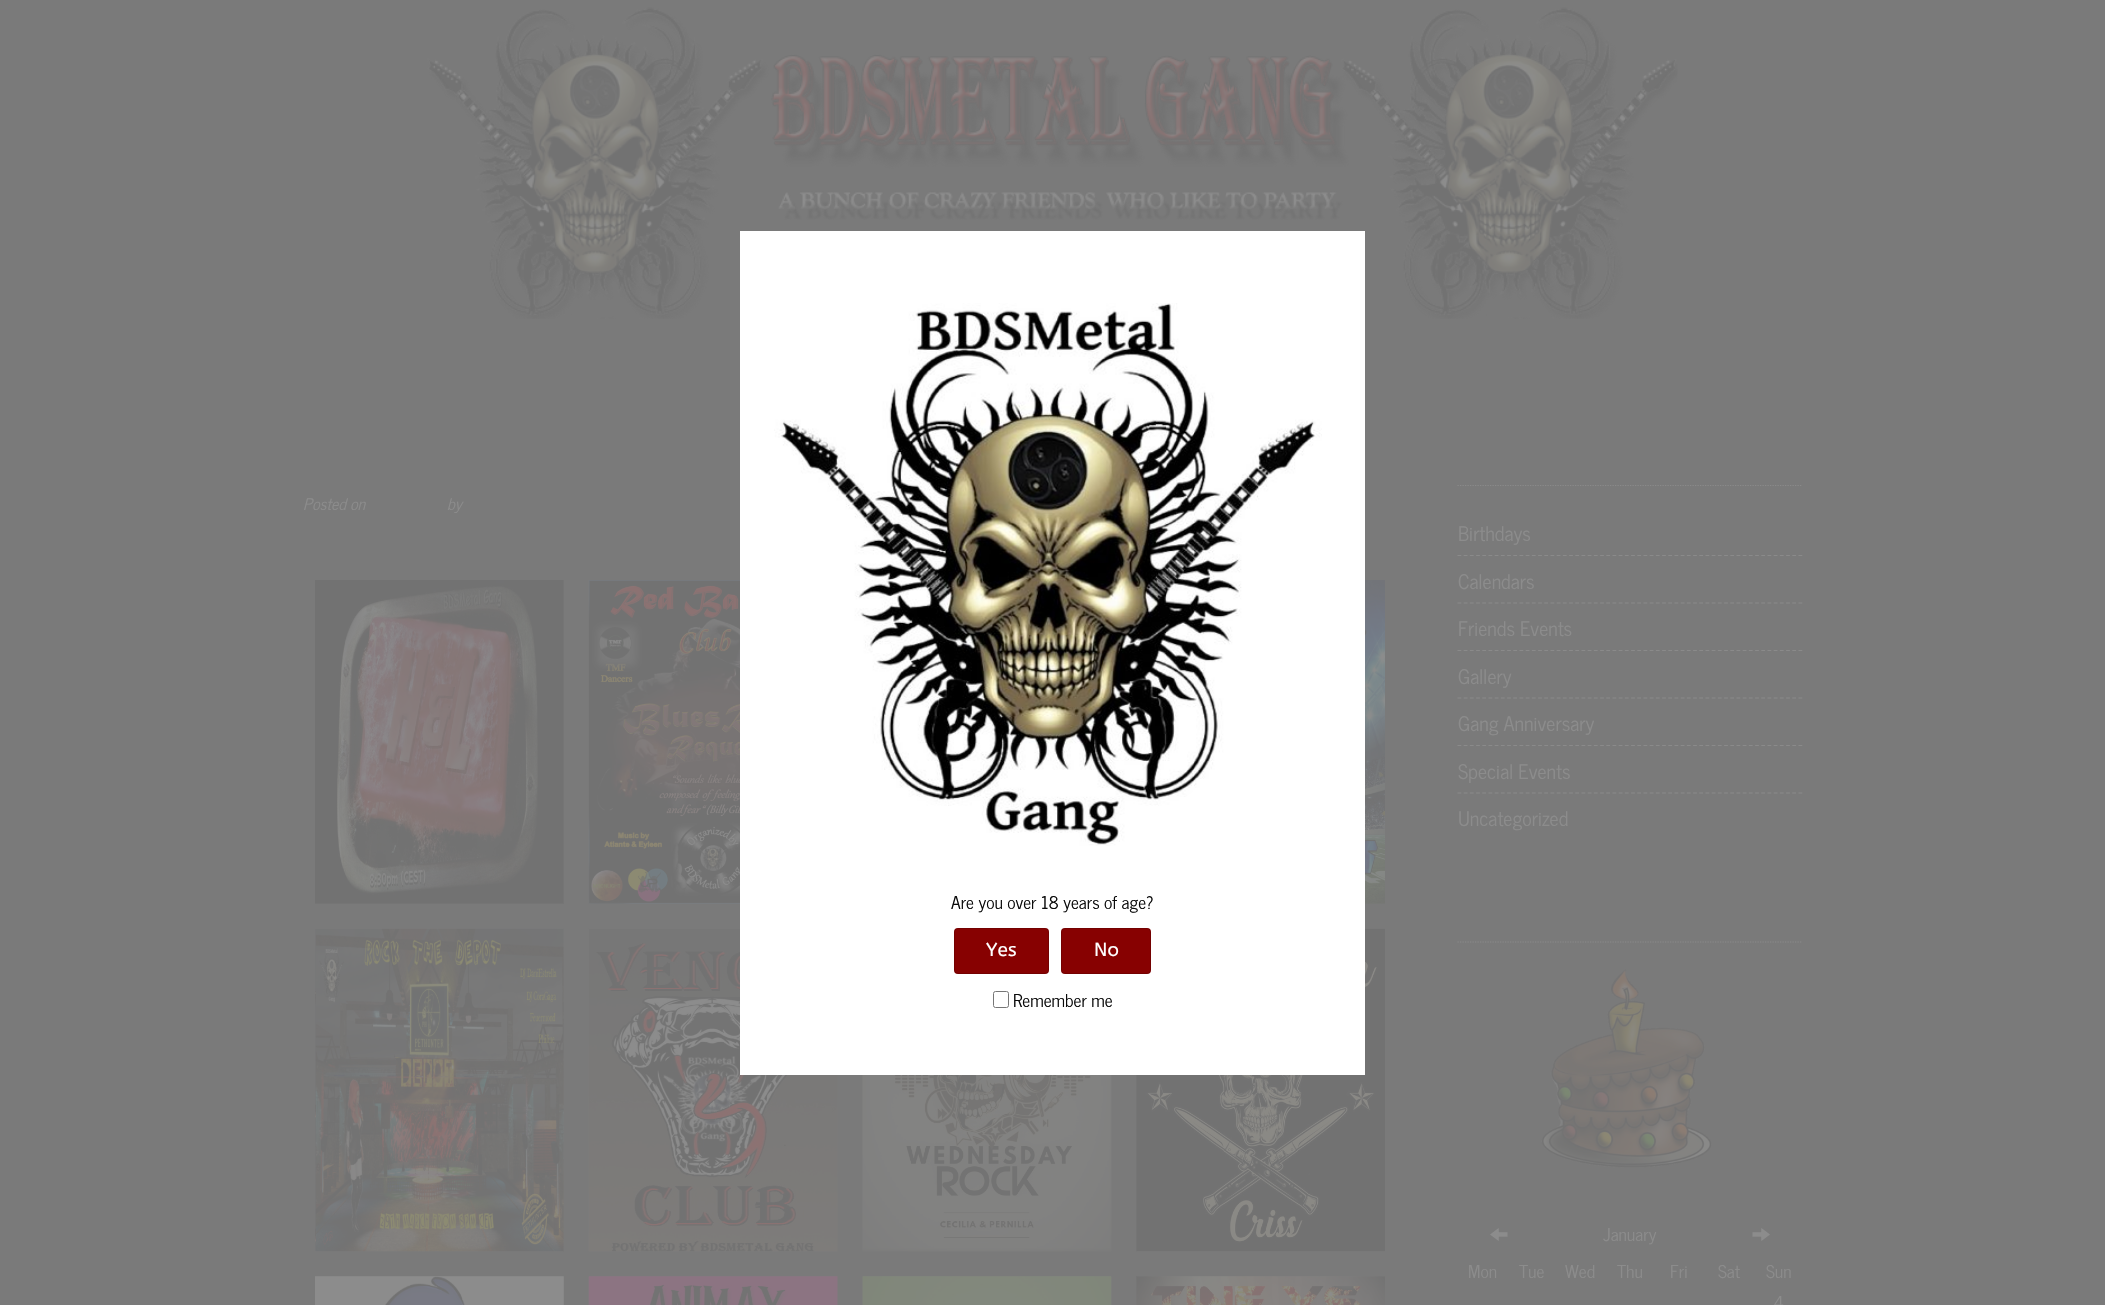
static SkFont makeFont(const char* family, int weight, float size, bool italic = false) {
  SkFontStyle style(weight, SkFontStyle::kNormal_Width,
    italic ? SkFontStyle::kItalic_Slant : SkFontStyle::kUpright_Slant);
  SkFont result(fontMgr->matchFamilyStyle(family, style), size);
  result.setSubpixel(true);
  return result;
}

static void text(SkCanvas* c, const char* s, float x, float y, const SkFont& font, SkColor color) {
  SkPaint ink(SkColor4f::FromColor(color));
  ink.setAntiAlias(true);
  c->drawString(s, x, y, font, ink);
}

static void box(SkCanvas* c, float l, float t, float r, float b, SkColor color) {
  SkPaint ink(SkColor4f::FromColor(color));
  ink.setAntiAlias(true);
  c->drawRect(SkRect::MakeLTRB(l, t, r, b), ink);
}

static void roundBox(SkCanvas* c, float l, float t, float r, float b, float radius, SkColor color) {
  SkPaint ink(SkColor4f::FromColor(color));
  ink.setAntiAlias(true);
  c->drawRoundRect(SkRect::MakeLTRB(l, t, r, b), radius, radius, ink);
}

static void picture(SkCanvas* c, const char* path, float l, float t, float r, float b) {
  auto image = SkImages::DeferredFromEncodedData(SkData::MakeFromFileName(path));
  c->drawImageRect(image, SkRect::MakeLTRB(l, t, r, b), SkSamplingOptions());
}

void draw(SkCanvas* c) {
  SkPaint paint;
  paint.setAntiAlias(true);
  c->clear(0xff7a7a7a);
  picture(c, "img_01.png", 427, 7, 1678, 319);
  SkFont face1 = makeFont("News Cycle", 400, 16, true);
  text(c, "Posted on", 303, 510, face1, 0xff8c8c8c);
  text(c, "by", 447, 510, face1, 0xff8c8c8c);
  picture(c, "img_02.png", 315, 580, 564, 904);
  picture(c, "img_03.png", 588, 580, 740, 904);
  picture(c, "img_04.png", 1365, 580, 1385, 904);
  picture(c, "img_05.png", 315, 928, 564, 1252);
  picture(c, "img_06.png", 588, 928, 838, 1252);
  picture(c, "img_07.png", 862, 1075, 1112, 1252);
  picture(c, "img_08.png", 1136, 928, 1385, 1252);
  picture(c, "img_09.png", 315, 1276, 564, 1305);
  picture(c, "img_10.png", 588, 1276, 838, 1305);
  picture(c, "img_11.png", 862, 1276, 1112, 1305);
  picture(c, "img_12.png", 1136, 1276, 1385, 1305);
  paint.setStyle(SkPaint::kStroke_Style);
  paint.setStrokeWidth(1.2f);
  paint.setColor(0xff8a8a8a);
  paint.setPathEffect(SkDashPathEffect::Make({{1.25f, 1.25f}}, 0));
  c->drawPath(SkPathBuilder().moveTo(1457.5f, 485.5f).lineTo(1802.5f, 485.5f).detach(), paint);
  paint.setPathEffect(nullptr);
  paint.setPathEffect(SkDashPathEffect::Make({{3.75f, 2.45f}}, 0));
  c->drawPath(SkPathBuilder().moveTo(1457.5f, 555.5f).lineTo(1802.5f, 555.5f).detach(), paint);
  paint.setPathEffect(nullptr);
  SkFont face2 = makeFont("News Cycle", 400, 20);
  text(c, "Birthdays", 1458, 541, face2, 0xff8c8c8c);
  paint.setPathEffect(SkDashPathEffect::Make({{3.75f, 2.45f}}, 0));
  c->drawPath(SkPathBuilder().moveTo(1457.5f, 603).lineTo(1802.5f, 603).detach(), paint);
  paint.setPathEffect(nullptr);
  text(c, "Calendars", 1458, 589, face2, 0xff8c8c8c);
  paint.setPathEffect(SkDashPathEffect::Make({{3.75f, 2.45f}}, 0));
  c->drawPath(SkPathBuilder().moveTo(1457.5f, 650.5f).lineTo(1802.5f, 650.5f).detach(), paint);
  paint.setPathEffect(nullptr);
  text(c, "Friends Events", 1458, 636, face2, 0xff8c8c8c);
  paint.setPathEffect(SkDashPathEffect::Make({{3.75f, 2.45f}}, 0));
  c->drawPath(SkPathBuilder().moveTo(1457.5f, 698).lineTo(1802.5f, 698).detach(), paint);
  paint.setPathEffect(nullptr);
  text(c, "Gallery", 1458, 684, face2, 0xff8c8c8c);
  paint.setPathEffect(SkDashPathEffect::Make({{3.75f, 2.45f}}, 0));
  c->drawPath(SkPathBuilder().moveTo(1457.5f, 745.5f).lineTo(1802.5f, 745.5f).detach(), paint);
  paint.setPathEffect(nullptr);
  text(c, "Gang Anniversary", 1458, 731, face2, 0xff8c8c8c);
  paint.setPathEffect(SkDashPathEffect::Make({{3.75f, 2.45f}}, 0));
  c->drawPath(SkPathBuilder().moveTo(1457.5f, 793).lineTo(1802.5f, 793).detach(), paint);
  paint.setPathEffect(nullptr);
  text(c, "Special Events", 1458, 779, face2, 0xff8c8c8c);
  text(c, "Uncategorized", 1458, 826, face2, 0xff8c8c8c);
  paint.setPathEffect(SkDashPathEffect::Make({{1.25f, 1.25f}}, 0));
  c->drawPath(SkPathBuilder().moveTo(1457.5f, 942).lineTo(1802.5f, 942).detach(), paint);
  paint.setPathEffect(nullptr);
  picture(c, "img_13.png", 1541, 969, 1712, 1168);
  picture(c, "img_14.png", 1490, 1228, 1508, 1241);
  SkFont face3 = makeFont("News Cycle", 400, 17.5f);
  text(c, "January", 1603, 1241, face3, 0xff8c8c8c);
  picture(c, "img_15.png", 1752, 1228, 1770, 1241);
  text(c, "Mon", 1468, 1278, face3, 0xff8c8c8c);
  text(c, "Tue", 1519, 1278, face3, 0xff8c8c8c);
  text(c, "Wed", 1565, 1278, face3, 0xff8c8c8c);
  text(c, "Thu", 1617, 1278, face3, 0xff8c8c8c);
  text(c, "Fri", 1670, 1278, face3, 0xff8c8c8c);
  text(c, "Sat", 1718, 1278, face3, 0xff8c8c8c);
  text(c, "Sun", 1766, 1278, face3, 0xff8c8c8c);
  text(c, "4", 1773, 1309, face3, 0xff8c8c8c);
  box(c, 740, 231, 1365, 1075, 0xffffffff);
  picture(c, "img_16.png", 774, 303, 1322, 846);
  text(c, "Are you over 18 years of age?", 951, 909, face3, 0xff0a0a0a);
  roundBox(c, 954, 928, 1049, 974, 4, 0xff870101);
  paint.setStrokeWidth(1);
  paint.setColor(0x24000000);
  c->drawRoundRect(SkRect::MakeLTRB(954.5f, 928.5f, 1048.5f, 973.5f), 3.5f, 3.5f, paint);
  SkFont face4 = makeFont("ABeeZee", 400, 19);
  text(c, "Yes", 986, 956, face4, 0xffffffff);
  roundBox(c, 1061, 928, 1151, 974, 4, 0xff870101);
  c->drawRoundRect(SkRect::MakeLTRB(1061.5f, 928.5f, 1150.5f, 973.5f), 3.5f, 3.5f, paint);
  text(c, "No", 1094, 956, face4, 0xffffffff);
  paint.setColor(0xff767676);
  c->drawRoundRect(SkRect::MakeLTRB(993.5f, 991.5f, 1008.5f, 1007.5f), 2, 2, paint);
  text(c, "Remember me", 1013, 1007, face3, 0xff0a0a0a);
}
